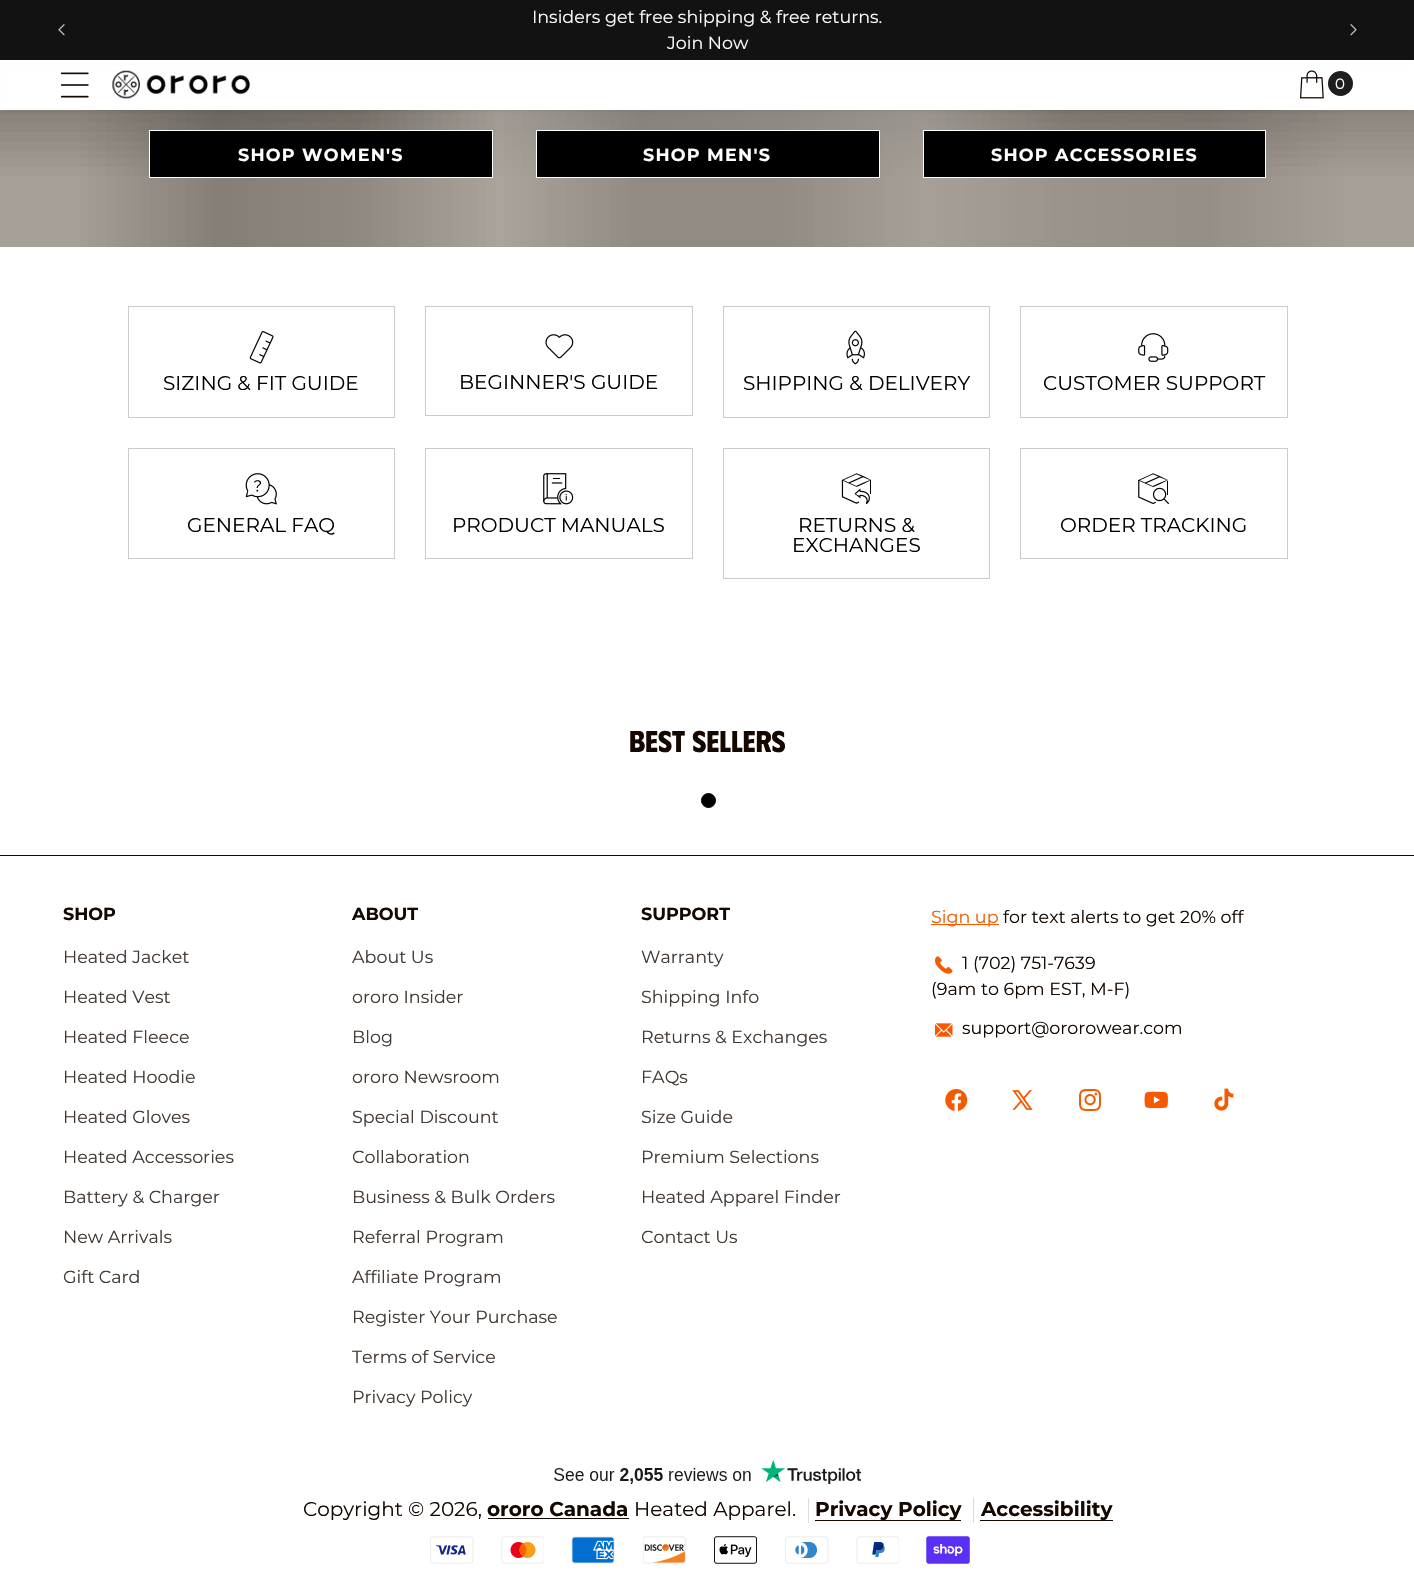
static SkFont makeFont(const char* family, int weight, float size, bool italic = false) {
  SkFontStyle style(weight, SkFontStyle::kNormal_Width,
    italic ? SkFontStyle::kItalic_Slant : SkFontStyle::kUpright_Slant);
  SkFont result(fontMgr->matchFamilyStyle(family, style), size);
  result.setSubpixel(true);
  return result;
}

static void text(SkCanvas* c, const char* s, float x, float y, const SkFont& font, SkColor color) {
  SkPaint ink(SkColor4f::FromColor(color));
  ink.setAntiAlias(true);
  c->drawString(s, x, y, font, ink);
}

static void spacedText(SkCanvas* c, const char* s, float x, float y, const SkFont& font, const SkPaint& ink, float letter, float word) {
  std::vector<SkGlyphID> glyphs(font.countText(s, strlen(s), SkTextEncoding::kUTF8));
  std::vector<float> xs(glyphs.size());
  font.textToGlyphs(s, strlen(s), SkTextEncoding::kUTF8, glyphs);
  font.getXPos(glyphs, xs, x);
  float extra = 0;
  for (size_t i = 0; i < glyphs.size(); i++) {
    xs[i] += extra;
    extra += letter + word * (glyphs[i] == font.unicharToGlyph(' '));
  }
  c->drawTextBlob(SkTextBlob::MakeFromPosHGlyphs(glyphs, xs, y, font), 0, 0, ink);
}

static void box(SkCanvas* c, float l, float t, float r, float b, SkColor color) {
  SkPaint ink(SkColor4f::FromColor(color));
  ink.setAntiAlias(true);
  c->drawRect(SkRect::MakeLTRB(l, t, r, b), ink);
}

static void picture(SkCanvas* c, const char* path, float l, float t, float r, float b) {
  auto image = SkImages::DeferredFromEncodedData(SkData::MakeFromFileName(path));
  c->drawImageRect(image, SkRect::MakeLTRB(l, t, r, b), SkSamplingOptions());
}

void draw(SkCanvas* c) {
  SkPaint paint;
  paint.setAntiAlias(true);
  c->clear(0xffffffff);
  box(c, 0, 0, 1414, 60, 0xff121212);
  picture(c, "img_01.png", 58, 24, 65, 36);
  SkFont face1 = makeFont("Montserrat", 400, 17.5f);
  text(c, "Insiders get free shipping & free returns.", 532, 23, face1, 0xffffffff);
  text(c, "Join Now", 667, 49, face1, 0xffffffff);
  picture(c, "img_02.png", 1350, 24, 1357, 36);
  picture(c, "img_06.png", 0, 110, 1414, 247);
  paint.setColor(0x1a000000);
  paint.setMaskFilter(SkMaskFilter::MakeBlur(kNormal_SkBlurStyle, 2));
  c->drawRect(SkRect::MakeLTRB(4, 68, 1411, 110), paint);
  paint.setMaskFilter(nullptr);
  box(c, 1, 65, 1414, 110, 0xffffffff);
  picture(c, "img_03.png", 60, 72, 89, 98);
  picture(c, "img_04.png", 112, 70, 250, 99);
  picture(c, "img_05.png", 1300, 70, 1324, 99);
  paint.setColor(0xff1e1e1e);
  c->drawCircle(1340.5f, 83.5f, 12.5f, paint);
  SkFont face2 = makeFont("Montserrat", 400, 15);
  text(c, "0", 1335, 89, face2, 0xffffffff);
  paint.setColor(0xff000000);
  c->drawRect(SkRect::MakeLTRB(149.5f, 130.5f, 492.5f, 177.5f), paint);
  paint.setStyle(SkPaint::kStroke_Style);
  paint.setStrokeWidth(1);
  paint.setColor(0xffffffff);
  c->drawRect(SkRect::MakeLTRB(149.5f, 130.5f, 492.5f, 177.5f), paint);
  SkFont face3 = makeFont("Montserrat", 700, 17.5f);
  paint.setStyle(SkPaint::kFill_Style);
  spacedText(c, "SHOP WOMEN'S", 238, 161, face3, paint, 1.25f, 0);
  paint.setColor(0xff000000);
  c->drawRect(SkRect::MakeLTRB(536.5f, 130.5f, 879.5f, 177.5f), paint);
  paint.setStyle(SkPaint::kStroke_Style);
  paint.setColor(0xffffffff);
  c->drawRect(SkRect::MakeLTRB(536.5f, 130.5f, 879.5f, 177.5f), paint);
  paint.setStyle(SkPaint::kFill_Style);
  spacedText(c, "SHOP MEN'S", 643, 161, face3, paint, 1.25f, 0);
  paint.setColor(0xff000000);
  c->drawRect(SkRect::MakeLTRB(923.5f, 130.5f, 1265.5f, 177.5f), paint);
  paint.setStyle(SkPaint::kStroke_Style);
  paint.setColor(0xffffffff);
  c->drawRect(SkRect::MakeLTRB(923.5f, 130.5f, 1265.5f, 177.5f), paint);
  paint.setStyle(SkPaint::kFill_Style);
  spacedText(c, "SHOP ACCESSORIES", 991, 161, face3, paint, 1.25f, 0);
  paint.setStyle(SkPaint::kStroke_Style);
  paint.setColor(0xffcbcbcb);
  c->drawRect(SkRect::MakeLTRB(128.5f, 306.5f, 394.5f, 417.5f), paint);
  picture(c, "img_07.png", 249, 331, 274, 364);
  SkFont face4 = makeFont("Montserrat", 400, 20);
  text(c, "SIZING & FIT GUIDE", 163, 390, face4, 0xff000000);
  c->drawRect(SkRect::MakeLTRB(425.5f, 306.5f, 692.5f, 415.5f), paint);
  picture(c, "img_08.png", 545, 334, 574, 359);
  text(c, "BEGINNER'S GUIDE", 459, 389, face4, 0xff000000);
  c->drawRect(SkRect::MakeLTRB(723.5f, 306.5f, 989.5f, 417.5f), paint);
  picture(c, "img_09.png", 846, 330, 865, 365);
  text(c, "SHIPPING & DELIVERY", 743, 390, face4, 0xff000000);
  c->drawRect(SkRect::MakeLTRB(1020.5f, 306.5f, 1287.5f, 417.5f), paint);
  picture(c, "img_10.png", 1138, 333, 1169, 362);
  text(c, "CUSTOMER SUPPORT", 1043, 390, face4, 0xff000000);
  c->drawRect(SkRect::MakeLTRB(128.5f, 448.5f, 394.5f, 558.5f), paint);
  picture(c, "img_11.png", 245, 473, 277, 505);
  text(c, "GENERAL FAQ", 187, 532, face4, 0xff000000);
  c->drawRect(SkRect::MakeLTRB(425.5f, 448.5f, 692.5f, 558.5f), paint);
  picture(c, "img_12.png", 543, 473, 574, 505);
  text(c, "PRODUCT MANUALS", 452, 532, face4, 0xff000000);
  c->drawRect(SkRect::MakeLTRB(723.5f, 448.5f, 989.5f, 578.5f), paint);
  picture(c, "img_13.png", 841, 473, 871, 505);
  text(c, "RETURNS &", 798, 532, face4, 0xff000000);
  text(c, "EXCHANGES", 792, 552, face4, 0xff000000);
  c->drawRect(SkRect::MakeLTRB(1020.5f, 448.5f, 1287.5f, 558.5f), paint);
  picture(c, "img_14.png", 1138, 473, 1170, 505);
  text(c, "ORDER TRACKING", 1060, 532, face4, 0xff000000);
  SkFont face5 = makeFont("Phudu", 700, 30);
  text(c, "BEST SELLERS", 629, 752, face5, 0xff140800);
  paint.setStyle(SkPaint::kFill_Style);
  paint.setColor(0xff000000);
  c->drawCircle(708.5f, 800.5f, 7, paint);
  paint.setStyle(SkPaint::kStroke_Style);
  c->drawCircle(708.5f, 800.5f, 7, paint);
  box(c, 0, 855, 1414, 856, 0xff140800);
  text(c, "SHOP", 63, 920, face3, 0xff140800);
  text(c, "Heated Jacket", 63, 963, face1, 0xff423933);
  text(c, "Heated Vest", 63, 1003, face1, 0xff423933);
  text(c, "Heated Fleece", 63, 1043, face1, 0xff423933);
  text(c, "Heated Hoodie", 63, 1083, face1, 0xff423933);
  text(c, "Heated Gloves", 63, 1123, face1, 0xff423933);
  text(c, "Heated Accessories", 63, 1163, face1, 0xff423933);
  text(c, "Battery & Charger", 63, 1203, face1, 0xff423933);
  text(c, "New Arrivals", 63, 1243, face1, 0xff423933);
  text(c, "Gift Card", 63, 1283, face1, 0xff423933);
  text(c, "ABOUT", 352, 920, face3, 0xff140800);
  text(c, "About Us", 352, 963, face1, 0xff423933);
  text(c, "ororo Insider", 352, 1003, face1, 0xff423933);
  text(c, "Blog", 352, 1043, face1, 0xff423933);
  text(c, "ororo Newsroom", 352, 1083, face1, 0xff423933);
  text(c, "Special Discount", 352, 1123, face1, 0xff423933);
  text(c, "Collaboration", 352, 1163, face1, 0xff423933);
  text(c, "Business & Bulk Orders", 352, 1203, face1, 0xff423933);
  text(c, "Referral Program", 352, 1243, face1, 0xff423933);
  text(c, "Affiliate Program", 352, 1283, face1, 0xff423933);
  text(c, "Register Your Purchase", 352, 1323, face1, 0xff423933);
  text(c, "Terms of Service", 352, 1363, face1, 0xff423933);
  text(c, "Privacy Policy", 352, 1403, face1, 0xff423933);
  text(c, "SUPPORT", 641, 920, face3, 0xff140800);
  text(c, "Warranty", 641, 963, face1, 0xff423933);
  text(c, "Shipping Info", 641, 1003, face1, 0xff423933);
  text(c, "Returns & Exchanges", 641, 1043, face1, 0xff423933);
  text(c, "FAQs", 641, 1083, face1, 0xff423933);
  text(c, "Size Guide", 641, 1123, face1, 0xff423933);
  text(c, "Premium Selections", 641, 1163, face1, 0xff423933);
  text(c, "Heated Apparel Finder", 641, 1203, face1, 0xff423933);
  text(c, "Contact Us", 641, 1243, face1, 0xff423933);
  box(c, 931, 924, 999, 925, 0xfff55a00);
  text(c, "Sign up", 931, 923, face1, 0xfff55a00);
  text(c, "for text alerts to get 20% off", 1003, 923, face1, 0xff140800);
  picture(c, "img_15.png", 935, 956, 953, 974);
  text(c, "1 (702) 751-7639", 962, 969, face1, 0xff140800);
  text(c, "(9am to 6pm EST, M-F)", 931, 995, face1, 0xff140800);
  picture(c, "img_16.png", 935, 1023, 953, 1037);
  text(c, "support@ororowear.com", 962, 1034, face1, 0xff140800);
  picture(c, "img_17.png", 945, 1089, 968, 1111);
  picture(c, "img_18.png", 1012, 1090, 1033, 1110);
  picture(c, "img_19.png", 1079, 1089, 1101, 1111);
  picture(c, "img_20.png", 1144, 1091, 1168, 1109);
  picture(c, "img_21.png", 1214, 1088, 1234, 1111);
  picture(c, "img_22.png", 554, 1460, 862, 1484);
  text(c, "Copyright © 2026,", 303, 1516, face4, 0xff140800);
  SkFont face6 = makeFont("Montserrat", 700, 20);
  text(c, "ororo Canada", 487, 1516, face6, 0xff140800);
  box(c, 488, 1518, 629, 1519, 0xff140800);
  text(c, "Heated Apparel.", 634, 1516, face4, 0xff140800);
  box(c, 808, 1498, 809, 1523, 0xffdddddd);
  box(c, 815, 1520, 961, 1521, 0xff140800);
  text(c, "Privacy Policy", 815, 1516, face6, 0xff140800);
  box(c, 973, 1498, 974, 1523, 0xffdddddd);
  box(c, 980, 1520, 1113, 1521, 0xff140800);
  text(c, "Accessibility", 981, 1516, face6, 0xff140800);
  picture(c, "img_23.png", 430, 1536, 474, 1564);
  picture(c, "img_24.png", 501, 1536, 544, 1564);
  picture(c, "img_25.png", 571, 1536, 615, 1564);
  picture(c, "img_26.png", 643, 1536, 686, 1564);
  picture(c, "img_27.png", 714, 1536, 757, 1564);
  picture(c, "img_28.png", 785, 1536, 829, 1564);
  picture(c, "img_29.png", 856, 1536, 899, 1564);
  picture(c, "img_30.png", 926, 1536, 970, 1564);
}
